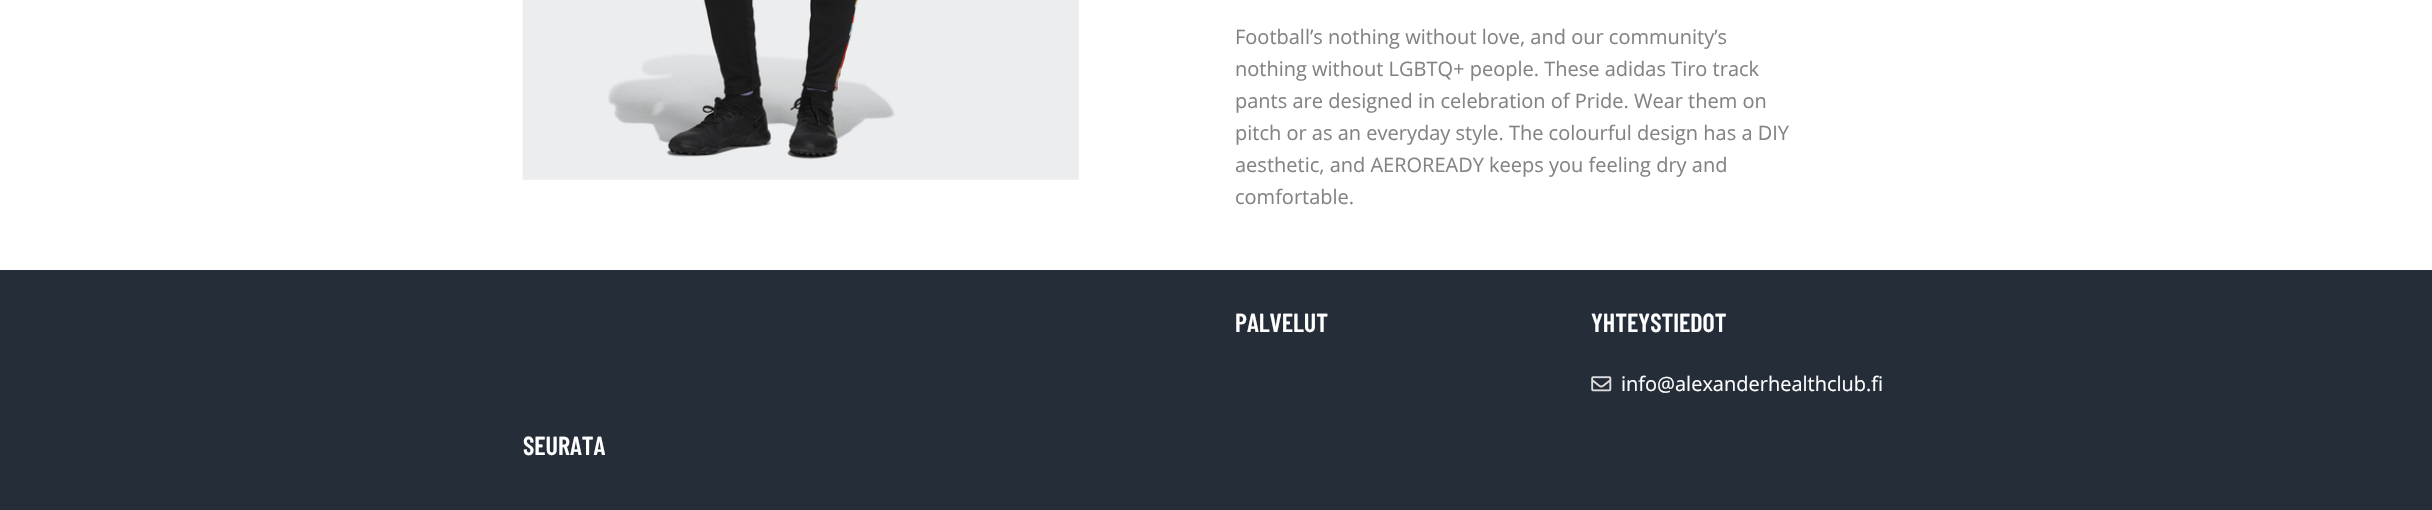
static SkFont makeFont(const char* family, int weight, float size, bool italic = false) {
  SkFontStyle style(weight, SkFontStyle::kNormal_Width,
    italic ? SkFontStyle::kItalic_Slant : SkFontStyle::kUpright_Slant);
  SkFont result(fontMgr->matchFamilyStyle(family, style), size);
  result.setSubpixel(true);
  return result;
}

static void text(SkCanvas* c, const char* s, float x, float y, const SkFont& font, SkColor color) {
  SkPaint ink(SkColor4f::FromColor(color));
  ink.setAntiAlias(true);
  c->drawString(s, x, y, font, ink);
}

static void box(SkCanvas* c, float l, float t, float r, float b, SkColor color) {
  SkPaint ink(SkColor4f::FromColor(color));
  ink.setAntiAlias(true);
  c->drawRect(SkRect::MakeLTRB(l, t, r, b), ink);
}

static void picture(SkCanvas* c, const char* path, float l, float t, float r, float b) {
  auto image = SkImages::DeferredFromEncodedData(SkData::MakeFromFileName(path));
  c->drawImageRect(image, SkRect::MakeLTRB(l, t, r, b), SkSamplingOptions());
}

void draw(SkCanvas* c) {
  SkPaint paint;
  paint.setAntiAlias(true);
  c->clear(0xffffffff);
  picture(c, "img_01.png", 522, 0, 1079, 180);
  SkFont face1 = makeFont("Open Sans", 400, 20);
  text(c, "Football’s nothing without love, and our community’s", 1235, 44, face1, 0xff818385);
  text(c, "nothing without LGBTQ+ people. These adidas Tiro track", 1235, 76, face1, 0xff818385);
  text(c, "pants are designed in celebration of Pride. Wear them on", 1235, 108, face1, 0xff818385);
  text(c, "pitch or as an everyday style. The colourful design has a DIY", 1235, 140, face1, 0xff818385);
  text(c, "aesthetic, and AEROREADY keeps you feeling dry and", 1235, 172, face1, 0xff818385);
  text(c, "comfortable.", 1235, 204, face1, 0xff818385);
  box(c, 0, 270, 2432, 510, 0xff252d39);
  SkFont face2 = makeFont("Barlow Condensed", 600, 26);
  text(c, "PALVELUT", 1235, 332, face2, 0xffffffff);
  text(c, "YHTEYSTIEDOT", 1591, 332, face2, 0xffffffff);
  picture(c, "img_02.png", 1591, 376, 1612, 392);
  text(c, "info@alexanderhealthclub.fi", 1621, 391, face1, 0xffffffff);
  text(c, "SEURATA", 523, 455, face2, 0xffffffff);
}
